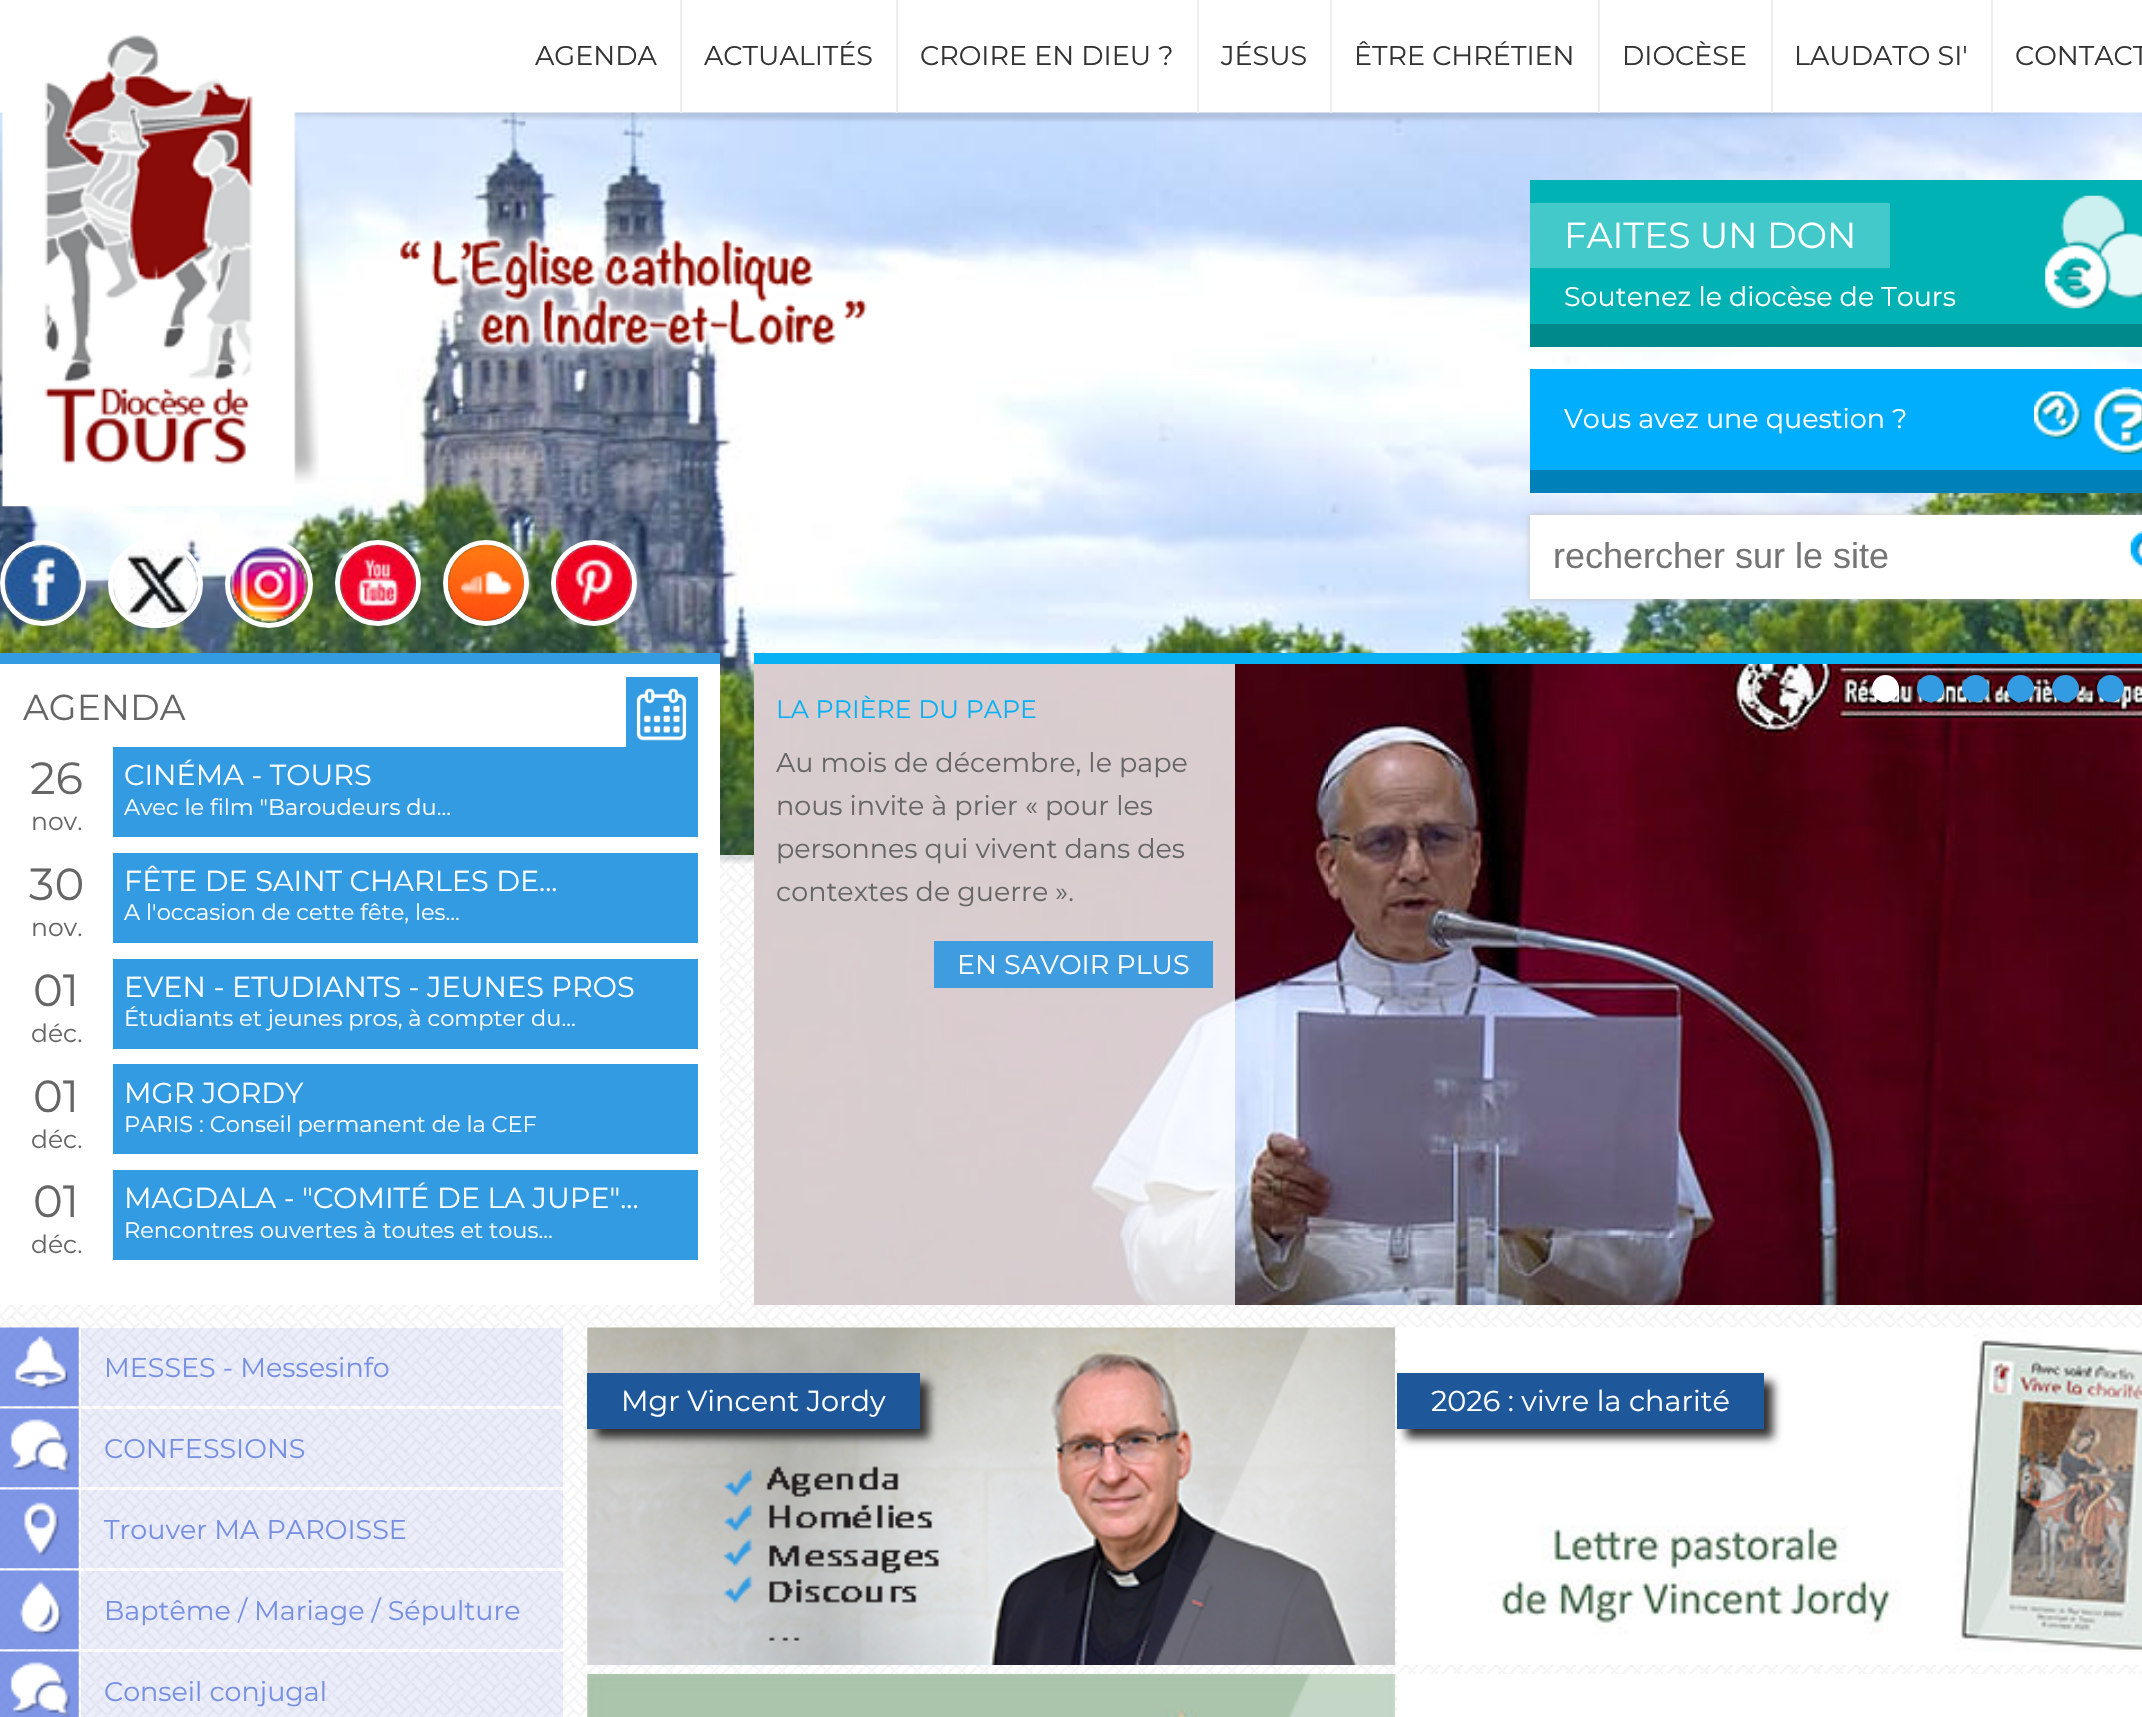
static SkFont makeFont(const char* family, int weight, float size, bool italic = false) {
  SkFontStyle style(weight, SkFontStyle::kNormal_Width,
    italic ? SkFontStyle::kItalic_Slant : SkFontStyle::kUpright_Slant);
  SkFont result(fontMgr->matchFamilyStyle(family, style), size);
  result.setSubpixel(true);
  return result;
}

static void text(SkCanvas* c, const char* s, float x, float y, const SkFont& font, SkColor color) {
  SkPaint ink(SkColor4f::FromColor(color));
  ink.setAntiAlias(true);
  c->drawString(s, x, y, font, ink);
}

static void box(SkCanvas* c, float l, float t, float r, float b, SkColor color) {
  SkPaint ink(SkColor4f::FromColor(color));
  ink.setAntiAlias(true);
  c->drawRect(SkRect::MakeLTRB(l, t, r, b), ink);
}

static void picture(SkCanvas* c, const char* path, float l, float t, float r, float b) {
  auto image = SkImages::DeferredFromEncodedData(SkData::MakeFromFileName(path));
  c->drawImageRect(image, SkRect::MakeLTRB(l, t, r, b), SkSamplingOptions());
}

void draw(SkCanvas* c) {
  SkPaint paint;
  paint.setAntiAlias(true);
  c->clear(0xffffffff);
  picture(c, "img_01.png", 0, 855, 2142, 1717);
  SkFont face1 = makeFont("Montserrat", 400, 27);
  text(c, "AGENDA", 535, 65, face1, 0xff333333);
  picture(c, "img_03.png", 0, 112, 2142, 855);
  picture(c, "img_02.png", 294, 112, 2078, 122);
  box(c, 680, 0, 682, 113, 0xffeeeeee);
  text(c, "ACTUALITÉS", 704, 65, face1, 0xff333333);
  box(c, 896, 0, 898, 113, 0xffeeeeee);
  text(c, "CROIRE EN DIEU ?", 920, 65, face1, 0xff333333);
  box(c, 1197, 0, 1199, 113, 0xffeeeeee);
  text(c, "JÉSUS", 1221, 65, face1, 0xff333333);
  box(c, 1330, 0, 1332, 113, 0xffeeeeee);
  text(c, "ÊTRE CHRÉTIEN", 1354, 65, face1, 0xff333333);
  box(c, 1598, 0, 1600, 113, 0xffeeeeee);
  text(c, "DIOCÈSE", 1622, 65, face1, 0xff333333);
  box(c, 1771, 0, 1773, 113, 0xffeeeeee);
  text(c, "LAUDATO SI'", 1794, 65, face1, 0xff333333);
  box(c, 1991, 0, 1993, 113, 0xffeeeeee);
  text(c, "CONTACT", 2015, 65, face1, 0xff333333);
  picture(c, "img_04.png", 0, 35, 319, 507);
  picture(c, "img_05.png", 399, 217, 867, 368);
  box(c, 1530, 180, 2142, 324, 0xff00b2b3);
  picture(c, "img_06.png", 2045, 195, 2142, 309);
  box(c, 1530, 324, 2142, 347, 0xff00898a);
  box(c, 1530, 203, 1890, 268, 0xff43c9ca);
  SkFont face2 = makeFont("Montserrat", 400, 36);
  text(c, "FAITES UN DON", 1564, 248, face2, 0xffffffff);
  text(c, "Soutenez le diocèse de Tours", 1564, 306, face1, 0xffffffff);
  box(c, 1530, 369, 2142, 470, 0xff00aefd);
  picture(c, "img_07.png", 2034, 387, 2142, 455);
  box(c, 1530, 470, 2142, 493, 0xff0080b9);
  text(c, "Vous avez une question ?", 1564, 428, face1, 0xffffffff);
  paint.setStyle(SkPaint::kStroke_Style);
  paint.setStrokeWidth(5);
  paint.setColor(0xffffffff);
  c->drawCircle(43, 583, 40.5f, paint);
  picture(c, "img_08.png", 4, 544, 81, 621);
  c->drawRoundRect(SkRect::MakeLTRB(110.5f, 542.5f, 200.5f, 625.5f), 41.5f, 41.5f, paint);
  picture(c, "img_09.png", 113, 547, 198, 623);
  c->drawCircle(269, 584, 41.5f, paint);
  picture(c, "img_10.png", 231, 546, 307, 623);
  c->drawCircle(378, 583, 40.5f, paint);
  picture(c, "img_11.png", 339, 544, 417, 621);
  c->drawCircle(486, 583, 40.5f, paint);
  picture(c, "img_12.png", 447, 544, 525, 621);
  c->drawCircle(594, 583, 40.5f, paint);
  picture(c, "img_13.png", 555, 544, 633, 621);
  paint.setStyle(SkPaint::kFill_Style);
  paint.setColor(0xffc4c4c4);
  paint.setMaskFilter(SkMaskFilter::MakeBlur(kNormal_SkBlurStyle, 3.5f));
  c->drawRect(SkRect::MakeLTRB(1530, 515, 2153, 599), paint);
  paint.setMaskFilter(nullptr);
  box(c, 1530, 515, 2142, 599, 0xffffffff);
  SkFont face3 = makeFont("Liberation Sans", 400, 36);
  text(c, "rechercher sur le site", 1553, 568, face3, 0xff757575);
  picture(c, "img_14.png", 2130, 531, 2142, 568);
  picture(c, "img_15.png", 720, 855, 754, 864);
  box(c, 0, 664, 720, 1305, 0xffffffff);
  box(c, 0, 653, 720, 664, 0xff339be1);
  text(c, "AGENDA", 23, 720, face2, 0xff666666);
  SkFont face4 = makeFont("Montserrat", 400, 45);
  text(c, "26", 30, 794, face4, 0xff666666);
  SkFont face5 = makeFont("Montserrat", 400, 25);
  text(c, "nov.", 31, 830, face5, 0xff666666);
  box(c, 113, 747, 698, 837, 0xff339be1);
  SkFont face6 = makeFont("Montserrat", 400, 28.75f);
  text(c, "CINÉMA - TOURS", 124, 785, face6, 0xffffffff);
  SkFont face7 = makeFont("Montserrat", 400, 22.5f);
  text(c, "Avec le film \"Baroudeurs du...", 124, 815, face7, 0xffffffff);
  text(c, "30", 29, 900, face4, 0xff666666);
  text(c, "nov.", 31, 936, face5, 0xff666666);
  box(c, 113, 853, 698, 943, 0xff339be1);
  text(c, "FÊTE DE SAINT CHARLES DE...", 124, 891, face6, 0xffffffff);
  text(c, "A l'occasion de cette fête, les...", 124, 920, face7, 0xffffffff);
  text(c, "01", 33, 1006, face4, 0xff666666);
  text(c, "déc.", 31, 1042, face5, 0xff666666);
  box(c, 113, 959, 698, 1049, 0xff339be1);
  text(c, "EVEN - ETUDIANTS - JEUNES PROS", 124, 997, face6, 0xffffffff);
  text(c, "Étudiants et jeunes pros, à compter du...", 124, 1026, face7, 0xffffffff);
  text(c, "01", 33, 1112, face4, 0xff666666);
  text(c, "déc.", 31, 1148, face5, 0xff666666);
  box(c, 113, 1064, 698, 1154, 0xff339be1);
  text(c, "MGR JORDY", 124, 1103, face6, 0xffffffff);
  text(c, "PARIS : Conseil permanent de la CEF", 124, 1132, face7, 0xffffffff);
  text(c, "01", 33, 1217, face4, 0xff666666);
  text(c, "déc.", 31, 1253, face5, 0xff666666);
  box(c, 113, 1170, 698, 1260, 0xff339be1);
  text(c, "MAGDALA - \"COMITÉ DE LA JUPE\"...", 124, 1208, face6, 0xffffffff);
  text(c, "Rencontres ouvertes à toutes et tous...", 124, 1238, face7, 0xffffffff);
  box(c, 626, 677, 698, 747, 0xff339be1);
  picture(c, "img_16.png", 636, 688, 687, 741);
  box(c, 754, 653, 2142, 664, 0xff08b1f4);
  picture(c, "img_17.png", 754, 664, 2142, 1305);
  paint.setColor(0xffffffff);
  c->drawCircle(1885.5f, 688.5f, 13.5f, paint);
  paint.setColor(0xff339be1);
  c->drawCircle(1930.5f, 688.5f, 13.5f, paint);
  c->drawCircle(1975.5f, 688.5f, 13.5f, paint);
  c->drawCircle(2020.5f, 688.5f, 13.5f, paint);
  c->drawCircle(2065.5f, 688.5f, 13.5f, paint);
  c->drawCircle(2110.5f, 688.5f, 13.5f, paint);
  box(c, 754, 664, 1235, 1305, 0xccffffff);
  SkFont face8 = makeFont("Montserrat", 400, 25.25f);
  text(c, "LA PRIÈRE DU PAPE", 776, 718, face8, 0xff08b1f4);
  text(c, "Au mois de décembre, le pape", 776, 772, face1, 0xff666666);
  text(c, "nous invite à prier « pour les", 776, 815, face1, 0xff666666);
  text(c, "personnes qui vivent dans des", 776, 858, face1, 0xff666666);
  text(c, "contextes de guerre ».", 776, 901, face1, 0xff666666);
  box(c, 934, 941, 1213, 988, 0xff3f9cdf);
  text(c, "EN SAVOIR PLUS", 957, 974, face1, 0xffffffff);
  picture(c, "img_18.png", 0, 1327, 79, 1407);
  box(c, 81, 1328, 563, 1406, 0x267f96e7);
  text(c, "MESSES - Messesinfo", 104, 1377, face1, 0xff768fe3);
  picture(c, "img_19.png", 0, 1408, 79, 1488);
  box(c, 81, 1409, 563, 1487, 0x267f96e7);
  text(c, "CONFESSIONS", 104, 1458, face1, 0xff768fe3);
  picture(c, "img_20.png", 0, 1489, 79, 1569);
  box(c, 81, 1490, 563, 1568, 0x267f96e7);
  text(c, "Trouver MA PAROISSE", 104, 1539, face1, 0xff768fe3);
  picture(c, "img_21.png", 0, 1570, 79, 1650);
  box(c, 81, 1571, 563, 1649, 0x267f96e7);
  text(c, "Baptême / Mariage / Sépulture", 104, 1620, face1, 0xff768fe3);
  picture(c, "img_22.png", 0, 1651, 79, 1717);
  box(c, 81, 1652, 563, 1717, 0x267f96e7);
  text(c, "Conseil conjugal", 104, 1701, face1, 0xff768fe3);
  picture(c, "img_23.png", 587, 1327, 1395, 1665);
  paint.setColor(0xff333333);
  paint.setMaskFilter(SkMaskFilter::MakeBlur(kNormal_SkBlurStyle, 4.5f));
  c->drawRect(SkRect::MakeLTRB(596, 1382, 929, 1438), paint);
  paint.setMaskFilter(nullptr);
  box(c, 587, 1373, 920, 1429, 0xff1e589a);
  text(c, "Mgr Vincent Jordy", 621, 1411, face6, 0xffffffff);
  picture(c, "img_25.png", 1397, 1327, 2142, 1665);
  paint.setMaskFilter(SkMaskFilter::MakeBlur(kNormal_SkBlurStyle, 4.5f));
  c->drawRect(SkRect::MakeLTRB(1406, 1382, 1773, 1438), paint);
  paint.setMaskFilter(nullptr);
  picture(c, "img_24.png", 1154, 1327, 1395, 1665);
  box(c, 1397, 1373, 1764, 1429, 0xff1e589a);
  text(c, "2026 : vivre la charité", 1431, 1411, face6, 0xffffffff);
  picture(c, "img_26.png", 1975, 1349, 2142, 1651);
  picture(c, "img_27.png", 587, 1674, 1395, 1717);
  picture(c, "img_28.png", 1289, 1674, 1395, 1717);
  box(c, 1397, 1674, 2142, 1717, 0xffffffff);
}
